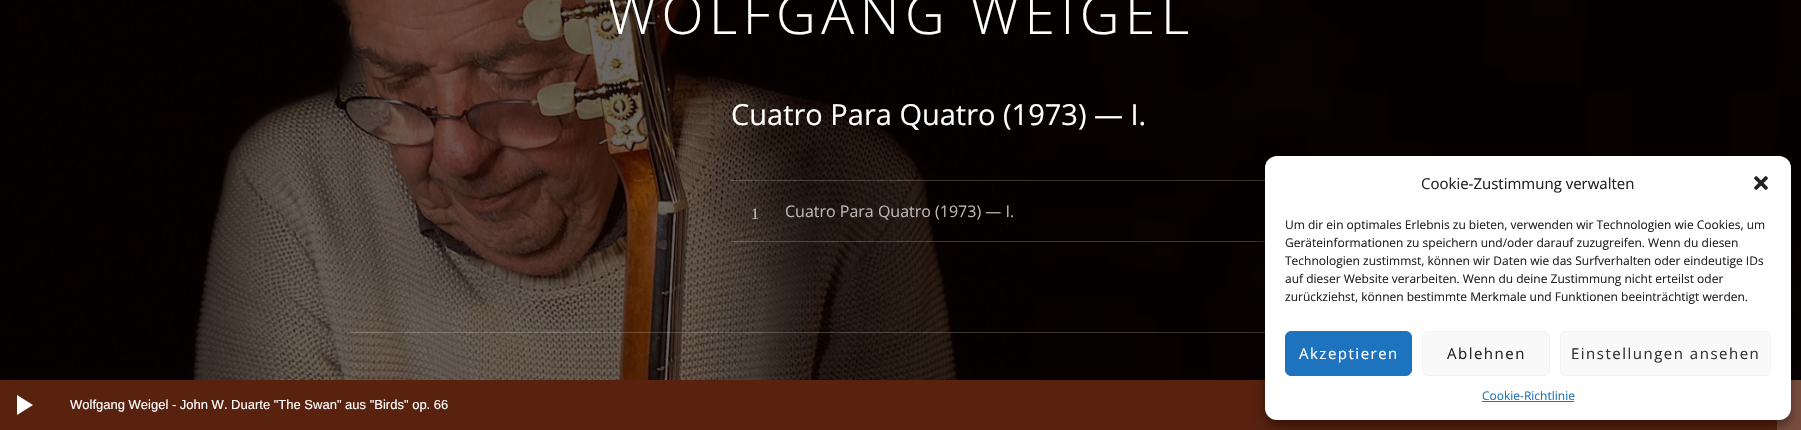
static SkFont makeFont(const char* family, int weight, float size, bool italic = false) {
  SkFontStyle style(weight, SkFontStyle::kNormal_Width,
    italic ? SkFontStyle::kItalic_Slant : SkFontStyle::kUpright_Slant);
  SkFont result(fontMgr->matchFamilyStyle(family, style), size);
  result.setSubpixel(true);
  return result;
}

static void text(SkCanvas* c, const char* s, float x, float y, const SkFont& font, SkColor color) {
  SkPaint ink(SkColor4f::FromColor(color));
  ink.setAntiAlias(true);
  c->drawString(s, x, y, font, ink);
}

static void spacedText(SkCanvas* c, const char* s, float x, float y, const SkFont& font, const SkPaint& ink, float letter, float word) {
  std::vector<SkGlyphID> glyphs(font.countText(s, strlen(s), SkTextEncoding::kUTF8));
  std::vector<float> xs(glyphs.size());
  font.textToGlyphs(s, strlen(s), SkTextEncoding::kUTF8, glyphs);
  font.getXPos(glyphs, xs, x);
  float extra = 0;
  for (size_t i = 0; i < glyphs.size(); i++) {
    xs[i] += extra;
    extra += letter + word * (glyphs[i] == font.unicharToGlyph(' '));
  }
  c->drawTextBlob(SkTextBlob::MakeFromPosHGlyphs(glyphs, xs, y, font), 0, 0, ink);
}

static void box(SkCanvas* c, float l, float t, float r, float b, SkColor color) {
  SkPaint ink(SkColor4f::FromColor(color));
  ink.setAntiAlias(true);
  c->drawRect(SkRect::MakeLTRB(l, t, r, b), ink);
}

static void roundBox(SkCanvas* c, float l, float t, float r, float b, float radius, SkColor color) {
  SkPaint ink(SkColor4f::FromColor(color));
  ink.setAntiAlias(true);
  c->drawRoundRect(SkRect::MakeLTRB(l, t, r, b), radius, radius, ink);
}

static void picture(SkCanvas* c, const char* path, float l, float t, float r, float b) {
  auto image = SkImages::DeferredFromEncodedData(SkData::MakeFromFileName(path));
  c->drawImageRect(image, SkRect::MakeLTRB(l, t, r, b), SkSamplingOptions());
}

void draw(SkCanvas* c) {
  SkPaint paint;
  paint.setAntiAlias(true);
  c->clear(0xffffffff);
  picture(c, "img_01.png", 0, 0, 1801, 380);
  SkFont face1 = makeFont("Open Sans", 300, 55);
  paint.setColor(0xffffffff);
  spacedText(c, "WOLFGANG WEIGEL", 607, 34, face1, paint, 5.5f, 0);
  SkFont face2 = makeFont("Open Sans", 400, 29);
  text(c, "Cuatro Para Quatro (1973) — I.", 731, 125, face2, 0xffffffff);
  box(c, 731, 180, 1265, 181, 0x33ffffff);
  box(c, 731, 241, 1265, 242, 0x33ffffff);
  SkFont face3 = makeFont("Liberation Serif", 400, 16);
  text(c, "1", 751, 219, face3, 0xffc5c1bf);
  SkFont face4 = makeFont("Open Sans", 400, 16);
  text(c, "Cuatro Para Quatro (1973) — I.", 785, 217, face4, 0xffbab7b6);
  box(c, 351, 332, 1265, 333, 0x33ffffff);
  box(c, 0, 380, 1777, 430, 0xff59220f);
  box(c, 1777, 380, 1801, 430, 0xff7a4e3f);
  paint.setColor(0x3b000000);
  paint.setMaskFilter(SkMaskFilter::MakeBlur(kNormal_SkBlurStyle, 3));
  c->drawRoundRect(SkRect::MakeLTRB(1265, 162, 1791, 426), 12, 12, paint);
  paint.setMaskFilter(nullptr);
  paint.setColor(0x30000000);
  paint.setMaskFilter(SkMaskFilter::MakeBlur(kNormal_SkBlurStyle, 10));
  c->drawRoundRect(SkRect::MakeLTRB(1265, 166, 1791, 430), 12, 12, paint);
  paint.setMaskFilter(nullptr);
  roundBox(c, 1265, 156, 1791, 420, 12, 0xffffffff);
  SkFont face5 = makeFont("Open Sans", 400, 15);
  text(c, "Cookie-Zustimmung verwalten", 1421, 189, face5, 0xff222222);
  picture(c, "img_02.png", 1754, 176, 1768, 190);
  SkFont face6 = makeFont("Open Sans", 400, 12);
  text(c, "Um dir ein optimales Erlebnis zu bieten, verwenden wir Technologien wie Cookies, um", 1285, 229, face6, 0xff222222);
  text(c, "Geräteinformationen zu speichern und/oder darauf zuzugreifen. Wenn du diesen", 1285, 247, face6, 0xff222222);
  text(c, "Technologien zustimmst, können wir Daten wie das Surfverhalten oder eindeutige IDs", 1285, 265, face6, 0xff222222);
  text(c, "auf dieser Website verarbeiten. Wenn du deine Zustimmung nicht erteilst oder", 1285, 283, face6, 0xff222222);
  text(c, "zurückziehst, können bestimmte Merkmale und Funktionen beeinträchtigt werden.", 1285, 301, face6, 0xff222222);
  paint.setColor(0xff1e73be);
  c->drawRoundRect(SkRect::MakeLTRB(1285.5f, 331.5f, 1411.5f, 375.5f), 5.5f, 5.5f, paint);
  paint.setStyle(SkPaint::kStroke_Style);
  paint.setStrokeWidth(1);
  c->drawRoundRect(SkRect::MakeLTRB(1285.5f, 331.5f, 1411.5f, 375.5f), 5.5f, 5.5f, paint);
  paint.setStyle(SkPaint::kFill_Style);
  paint.setColor(0xffffffff);
  spacedText(c, "Akzeptieren", 1299, 359, face5, paint, 1.5f, 0);
  paint.setColor(0xfff9f9f9);
  c->drawRoundRect(SkRect::MakeLTRB(1422.5f, 331.5f, 1549.5f, 375.5f), 5.5f, 5.5f, paint);
  paint.setStyle(SkPaint::kStroke_Style);
  paint.setColor(0xfff2f2f2);
  c->drawRoundRect(SkRect::MakeLTRB(1422.5f, 331.5f, 1549.5f, 375.5f), 5.5f, 5.5f, paint);
  paint.setStyle(SkPaint::kFill_Style);
  paint.setColor(0xff222222);
  spacedText(c, "Ablehnen", 1447, 359, face5, paint, 1.5f, 0);
  paint.setColor(0xfff9f9f9);
  c->drawRoundRect(SkRect::MakeLTRB(1560.5f, 331.5f, 1770.5f, 375.5f), 5.5f, 5.5f, paint);
  paint.setStyle(SkPaint::kStroke_Style);
  paint.setColor(0xfff2f2f2);
  c->drawRoundRect(SkRect::MakeLTRB(1560.5f, 331.5f, 1770.5f, 375.5f), 5.5f, 5.5f, paint);
  paint.setStyle(SkPaint::kFill_Style);
  paint.setColor(0xff333333);
  spacedText(c, "Einstellungen ansehen", 1571, 359, face5, paint, 1.5f, 0);
  text(c, "Cookie-Richtlinie", 1482, 400, face6, 0xff1e73be);
  box(c, 1482, 401, 1574, 402, 0xff1e73be);
  paint.setColor(0xffffffff);
  c->drawPath(SkPathBuilder().moveTo(33, 405).lineTo(17, 415).lineTo(17, 395).close().detach(), paint);
  SkFont face7 = makeFont("Liberation Sans", 400, 13);
  text(c, "Wolfgang Weigel - John W. Duarte \"The Swan\" aus \"Birds\" op. 66", 70, 409, face7, 0xffffffff);
}
